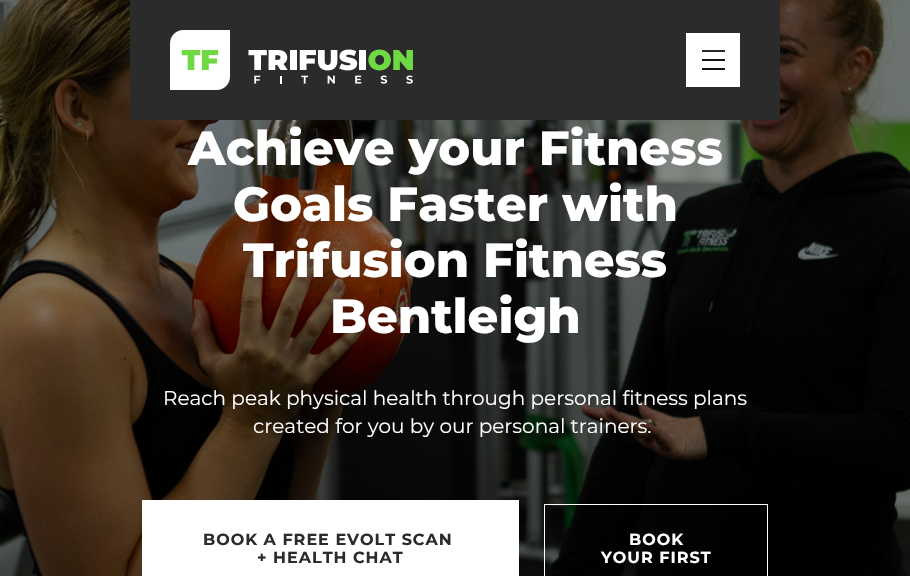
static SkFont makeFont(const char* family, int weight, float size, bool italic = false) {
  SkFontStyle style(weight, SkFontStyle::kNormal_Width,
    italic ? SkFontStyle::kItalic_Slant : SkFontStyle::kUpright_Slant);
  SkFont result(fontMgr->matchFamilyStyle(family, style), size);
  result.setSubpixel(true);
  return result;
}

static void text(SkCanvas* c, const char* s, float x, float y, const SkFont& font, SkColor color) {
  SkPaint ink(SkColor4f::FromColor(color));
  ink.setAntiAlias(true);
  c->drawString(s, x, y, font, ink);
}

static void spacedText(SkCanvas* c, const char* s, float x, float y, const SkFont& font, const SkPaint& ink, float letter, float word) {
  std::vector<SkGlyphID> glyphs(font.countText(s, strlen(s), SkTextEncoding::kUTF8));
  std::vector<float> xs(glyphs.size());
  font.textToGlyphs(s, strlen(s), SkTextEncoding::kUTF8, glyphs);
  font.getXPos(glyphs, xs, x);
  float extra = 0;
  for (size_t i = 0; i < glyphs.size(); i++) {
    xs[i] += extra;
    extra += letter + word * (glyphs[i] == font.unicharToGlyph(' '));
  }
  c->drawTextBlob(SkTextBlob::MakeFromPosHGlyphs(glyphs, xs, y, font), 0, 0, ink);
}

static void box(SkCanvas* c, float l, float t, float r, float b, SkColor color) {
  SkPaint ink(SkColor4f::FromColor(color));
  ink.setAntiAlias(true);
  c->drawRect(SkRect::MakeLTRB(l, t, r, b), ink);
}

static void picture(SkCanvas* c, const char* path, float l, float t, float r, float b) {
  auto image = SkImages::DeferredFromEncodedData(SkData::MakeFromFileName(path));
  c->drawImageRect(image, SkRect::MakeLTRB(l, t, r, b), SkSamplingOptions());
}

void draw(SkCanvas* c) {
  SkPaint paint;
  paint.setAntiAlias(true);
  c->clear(0xffffffff);
  picture(c, "img_02.png", 0, 0, 910, 576);
  box(c, 130, 0, 780, 120, 0xff2b2b2b);
  picture(c, "img_01.png", 170, 30, 413, 90);
  box(c, 686, 33, 740, 87, 0xffffffff);
  box(c, 702, 50, 725, 52, 0xff2b2b2b);
  box(c, 702, 59, 725, 61, 0xff141414);
  box(c, 702, 68, 725, 70, 0xff141414);
  SkFont face1 = makeFont("Montserrat", 800, 48);
  text(c, "Achieve your Fitness", 188, 165, face1, 0xffffffff);
  text(c, "Goals Faster with", 233, 221, face1, 0xffffffff);
  text(c, "Trifusion Fitness", 243, 277, face1, 0xffffffff);
  text(c, "Bentleigh", 330, 333, face1, 0xffffffff);
  SkFont face2 = makeFont("Montserrat", 400, 20);
  text(c, "Reach peak physical health through personal fitness plans", 163, 405, face2, 0xffffffff);
  text(c, "created for you by our personal trainers.", 253, 433, face2, 0xffffffff);
  box(c, 142, 500, 519, 576, 0xffffffff);
  SkFont face3 = makeFont("Montserrat", 700, 16);
  paint.setColor(0xff2b2b2b);
  spacedText(c, "BOOK A FREE EVOLT SCAN", 203, 545, face3, paint, 1, 0);
  spacedText(c, "+ HEALTH CHAT", 257, 563, face3, paint, 1, 0);
  paint.setStyle(SkPaint::kStroke_Style);
  paint.setStrokeWidth(1);
  paint.setColor(0xffffffff);
  c->drawRect(SkRect::MakeLTRB(544.5f, 504.5f, 767.5f, 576.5f), paint);
  paint.setStyle(SkPaint::kFill_Style);
  spacedText(c, "BOOK", 629, 545, face3, paint, 1, 0);
  spacedText(c, "YOUR FIRST", 601, 563, face3, paint, 1, 0);
}
